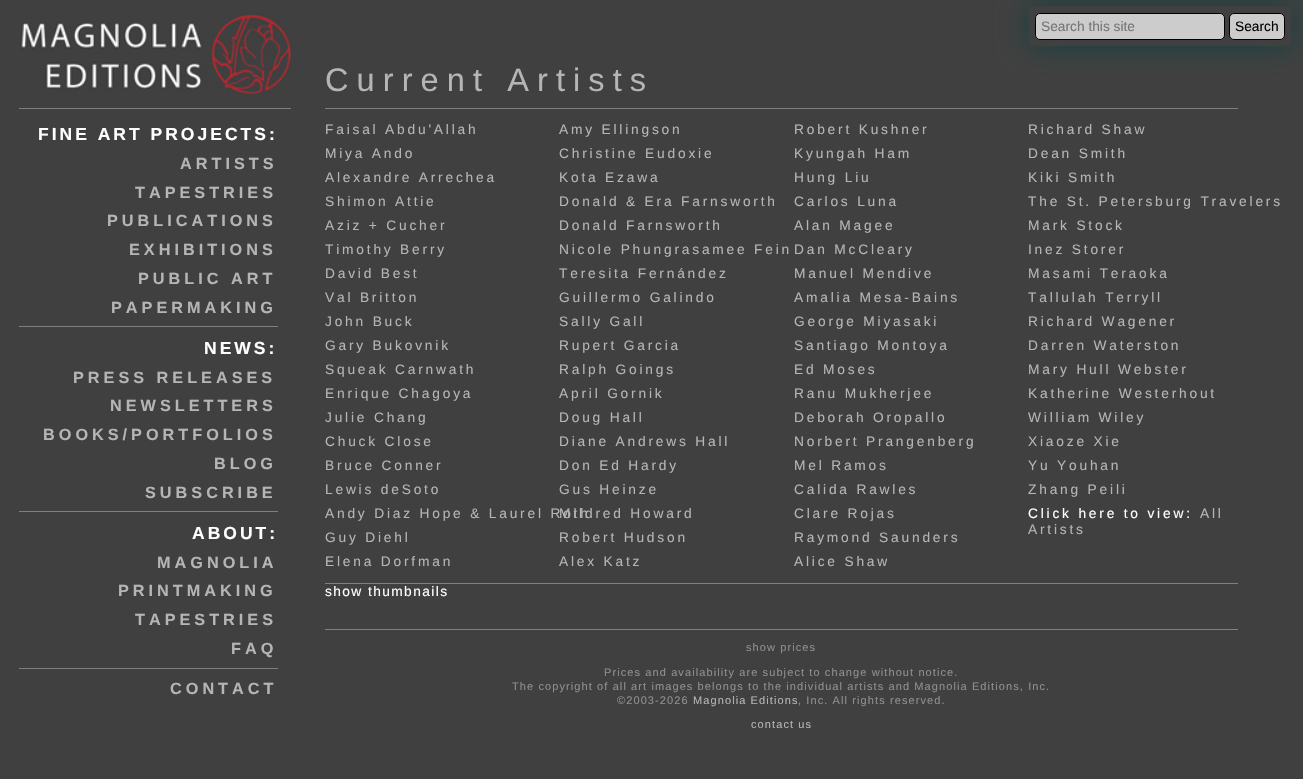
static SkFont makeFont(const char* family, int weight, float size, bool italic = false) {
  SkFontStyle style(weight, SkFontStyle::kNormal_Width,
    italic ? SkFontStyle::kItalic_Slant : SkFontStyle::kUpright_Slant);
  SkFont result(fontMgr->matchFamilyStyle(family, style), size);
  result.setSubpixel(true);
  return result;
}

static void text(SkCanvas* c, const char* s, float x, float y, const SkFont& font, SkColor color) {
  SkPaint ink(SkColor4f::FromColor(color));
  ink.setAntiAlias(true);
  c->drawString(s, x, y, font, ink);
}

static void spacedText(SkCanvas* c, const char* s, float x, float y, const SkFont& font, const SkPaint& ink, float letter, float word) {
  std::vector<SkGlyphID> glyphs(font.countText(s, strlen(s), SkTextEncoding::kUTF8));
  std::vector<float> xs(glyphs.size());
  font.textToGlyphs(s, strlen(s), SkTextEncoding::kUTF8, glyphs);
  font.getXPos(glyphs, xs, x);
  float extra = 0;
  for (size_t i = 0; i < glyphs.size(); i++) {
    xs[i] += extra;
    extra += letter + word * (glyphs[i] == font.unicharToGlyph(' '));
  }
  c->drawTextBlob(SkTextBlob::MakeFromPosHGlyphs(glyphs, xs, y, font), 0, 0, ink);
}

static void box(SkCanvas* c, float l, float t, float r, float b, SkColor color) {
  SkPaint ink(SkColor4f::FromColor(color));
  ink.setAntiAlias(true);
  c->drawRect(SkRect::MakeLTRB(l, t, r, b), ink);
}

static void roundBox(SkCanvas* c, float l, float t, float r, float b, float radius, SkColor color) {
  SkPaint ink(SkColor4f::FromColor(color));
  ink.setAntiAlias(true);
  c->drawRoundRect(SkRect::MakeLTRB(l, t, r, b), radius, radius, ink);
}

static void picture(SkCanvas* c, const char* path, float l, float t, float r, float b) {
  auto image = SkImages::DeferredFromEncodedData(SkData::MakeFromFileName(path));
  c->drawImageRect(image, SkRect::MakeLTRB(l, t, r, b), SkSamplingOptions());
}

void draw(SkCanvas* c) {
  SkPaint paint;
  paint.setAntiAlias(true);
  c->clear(0xff404040);
  paint.setColor(0xbd044040);
  paint.setMaskFilter(SkMaskFilter::MakeBlur(kNormal_SkBlurStyle, 14.5f));
  c->drawRoundRect(SkRect::MakeLTRB(1029, 6, 1291, 46), 5, 5, paint);
  paint.setMaskFilter(nullptr);
  roundBox(c, 1029, 6, 1291, 46, 5, 0xff404040);
  paint.setColor(0xffcccccc);
  c->drawRoundRect(SkRect::MakeLTRB(1035.5f, 13.5f, 1224.5f, 39.5f), 4.5f, 4.5f, paint);
  paint.setStyle(SkPaint::kStroke_Style);
  paint.setStrokeWidth(1);
  paint.setColor(0xff000000);
  c->drawRoundRect(SkRect::MakeLTRB(1035.5f, 13.5f, 1224.5f, 39.5f), 4.5f, 4.5f, paint);
  SkFont face1 = makeFont("Liberation Sans", 400, 13.75f);
  text(c, "Search this site", 1041, 31, face1, 0xff757575);
  paint.setStyle(SkPaint::kFill_Style);
  paint.setColor(0xffcccccc);
  c->drawRoundRect(SkRect::MakeLTRB(1229.5f, 13.5f, 1284.5f, 39.5f), 4.5f, 4.5f, paint);
  paint.setStyle(SkPaint::kStroke_Style);
  paint.setColor(0xff000000);
  c->drawRoundRect(SkRect::MakeLTRB(1229.5f, 13.5f, 1284.5f, 39.5f), 4.5f, 4.5f, paint);
  text(c, "Search", 1235, 31, face1, 0xff000000);
  picture(c, "img_01.png", 20, 13, 292, 95);
  box(c, 19, 108, 291, 109, 0xff808080);
  box(c, 19, 326, 278, 327, 0xff808080);
  SkFont face2 = makeFont("Liberation Sans", 700, 17.5f);
  paint.setStyle(SkPaint::kFill_Style);
  paint.setColor(0xffffffff);
  spacedText(c, "FINE ART PROJECTS:", 38, 140, face2, paint, 3, 0);
  SkFont face3 = makeFont("Liberation Sans", 700, 16.25f);
  paint.setColor(0xffb5b5b5);
  spacedText(c, "ARTISTS", 180, 169, face3, paint, 4, 0);
  spacedText(c, "TAPESTRIES", 135, 198, face3, paint, 4, 0);
  spacedText(c, "PUBLICATIONS", 107, 226, face3, paint, 4, 0);
  spacedText(c, "EXHIBITIONS", 129, 255, face3, paint, 4, 0);
  spacedText(c, "PUBLIC ART", 138, 284, face3, paint, 4, 0);
  spacedText(c, "PAPERMAKING", 111, 313, face3, paint, 4, 0);
  box(c, 19, 511, 278, 512, 0xff808080);
  paint.setColor(0xffffffff);
  spacedText(c, "NEWS:", 204, 354, face2, paint, 3, 0);
  paint.setColor(0xffb5b5b5);
  spacedText(c, "PRESS RELEASES", 73, 383, face3, paint, 4, 0);
  spacedText(c, "NEWSLETTERS", 110, 411, face3, paint, 4, 0);
  spacedText(c, "BOOKS/PORTFOLIOS", 43, 440, face3, paint, 4, 0);
  spacedText(c, "BLOG", 214, 469, face3, paint, 4, 0);
  spacedText(c, "SUBSCRIBE", 145, 498, face3, paint, 4, 0);
  box(c, 19, 668, 278, 669, 0xff808080);
  paint.setColor(0xffffffff);
  spacedText(c, "ABOUT:", 192, 539, face2, paint, 3, 0);
  paint.setColor(0xffb5b5b5);
  spacedText(c, "MAGNOLIA", 157, 568, face3, paint, 4, 0);
  spacedText(c, "PRINTMAKING", 118, 596, face3, paint, 4, 0);
  spacedText(c, "TAPESTRIES", 135, 625, face3, paint, 4, 0);
  spacedText(c, "FAQ", 231, 654, face3, paint, 4, 0);
  spacedText(c, "CONTACT", 170, 694, face3, paint, 4, 0);
  box(c, 325, 108, 1238, 109, 0xff808080);
  SkFont face4 = makeFont("Liberation Sans", 400, 32.5f);
  spacedText(c, "Current Artists", 325, 91, face4, paint, 8.1f, 0);
  spacedText(c, "Faisal Abdu'Allah", 325, 134, face1, paint, 2.8f, 0);
  spacedText(c, "Amy Ellingson", 559, 134, face1, paint, 2.8f, 0);
  spacedText(c, "Robert Kushner", 794, 134, face1, paint, 2.8f, 0);
  spacedText(c, "Richard Shaw", 1028, 134, face1, paint, 2.8f, 0);
  spacedText(c, "Miya Ando", 325, 158, face1, paint, 2.8f, 0);
  spacedText(c, "Christine Eudoxie", 559, 158, face1, paint, 2.8f, 0);
  spacedText(c, "Kyungah Ham", 794, 158, face1, paint, 2.8f, 0);
  spacedText(c, "Dean Smith", 1028, 158, face1, paint, 2.8f, 0);
  spacedText(c, "Alexandre Arrechea", 325, 182, face1, paint, 2.8f, 0);
  spacedText(c, "Kota Ezawa", 559, 182, face1, paint, 2.8f, 0);
  spacedText(c, "Hung Liu", 794, 182, face1, paint, 2.8f, 0);
  spacedText(c, "Kiki Smith", 1028, 182, face1, paint, 2.8f, 0);
  spacedText(c, "Shimon Attie", 325, 206, face1, paint, 2.8f, 0);
  spacedText(c, "Donald & Era Farnsworth", 559, 206, face1, paint, 2.8f, 0);
  spacedText(c, "Carlos Luna", 794, 206, face1, paint, 2.8f, 0);
  spacedText(c, "The St. Petersburg Travelers", 1028, 206, face1, paint, 2.8f, 0);
  spacedText(c, "Aziz + Cucher", 325, 230, face1, paint, 2.8f, 0);
  spacedText(c, "Donald Farnsworth", 559, 230, face1, paint, 2.8f, 0);
  spacedText(c, "Alan Magee", 794, 230, face1, paint, 2.8f, 0);
  spacedText(c, "Mark Stock", 1028, 230, face1, paint, 2.8f, 0);
  spacedText(c, "Timothy Berry", 325, 254, face1, paint, 2.8f, 0);
  spacedText(c, "Nicole Phungrasamee Fein", 559, 254, face1, paint, 2.8f, 0);
  spacedText(c, "Dan McCleary", 794, 254, face1, paint, 2.8f, 0);
  spacedText(c, "Inez Storer", 1028, 254, face1, paint, 2.8f, 0);
  spacedText(c, "David Best", 325, 278, face1, paint, 2.8f, 0);
  spacedText(c, "Teresita Fernández", 559, 278, face1, paint, 2.8f, 0);
  spacedText(c, "Manuel Mendive", 794, 278, face1, paint, 2.8f, 0);
  spacedText(c, "Masami Teraoka", 1028, 278, face1, paint, 2.8f, 0);
  spacedText(c, "Val Britton", 325, 302, face1, paint, 2.8f, 0);
  spacedText(c, "Guillermo Galindo", 559, 302, face1, paint, 2.8f, 0);
  spacedText(c, "Amalia Mesa-Bains", 794, 302, face1, paint, 2.8f, 0);
  spacedText(c, "Tallulah Terryll", 1028, 302, face1, paint, 2.8f, 0);
  spacedText(c, "John Buck", 325, 326, face1, paint, 2.8f, 0);
  spacedText(c, "Sally Gall", 559, 326, face1, paint, 2.8f, 0);
  spacedText(c, "George Miyasaki", 794, 326, face1, paint, 2.8f, 0);
  spacedText(c, "Richard Wagener", 1028, 326, face1, paint, 2.8f, 0);
  spacedText(c, "Gary Bukovnik", 325, 350, face1, paint, 2.8f, 0);
  spacedText(c, "Rupert Garcia", 559, 350, face1, paint, 2.8f, 0);
  spacedText(c, "Santiago Montoya", 794, 350, face1, paint, 2.8f, 0);
  spacedText(c, "Darren Waterston", 1028, 350, face1, paint, 2.8f, 0);
  spacedText(c, "Squeak Carnwath", 325, 374, face1, paint, 2.8f, 0);
  spacedText(c, "Ralph Goings", 559, 374, face1, paint, 2.8f, 0);
  spacedText(c, "Ed Moses", 794, 374, face1, paint, 2.8f, 0);
  spacedText(c, "Mary Hull Webster", 1028, 374, face1, paint, 2.8f, 0);
  spacedText(c, "Enrique Chagoya", 325, 398, face1, paint, 2.8f, 0);
  spacedText(c, "April Gornik", 559, 398, face1, paint, 2.8f, 0);
  spacedText(c, "Ranu Mukherjee", 794, 398, face1, paint, 2.8f, 0);
  spacedText(c, "Katherine Westerhout", 1028, 398, face1, paint, 2.8f, 0);
  spacedText(c, "Julie Chang", 325, 422, face1, paint, 2.8f, 0);
  spacedText(c, "Doug Hall", 559, 422, face1, paint, 2.8f, 0);
  spacedText(c, "Deborah Oropallo", 794, 422, face1, paint, 2.8f, 0);
  spacedText(c, "William Wiley", 1028, 422, face1, paint, 2.8f, 0);
  spacedText(c, "Chuck Close", 325, 446, face1, paint, 2.8f, 0);
  spacedText(c, "Diane Andrews Hall", 559, 446, face1, paint, 2.8f, 0);
  spacedText(c, "Norbert Prangenberg", 794, 446, face1, paint, 2.8f, 0);
  spacedText(c, "Xiaoze Xie", 1028, 446, face1, paint, 2.8f, 0);
  spacedText(c, "Bruce Conner", 325, 470, face1, paint, 2.8f, 0);
  spacedText(c, "Don Ed Hardy", 559, 470, face1, paint, 2.8f, 0);
  spacedText(c, "Mel Ramos", 794, 470, face1, paint, 2.8f, 0);
  spacedText(c, "Yu Youhan", 1028, 470, face1, paint, 2.8f, 0);
  spacedText(c, "Lewis deSoto", 325, 494, face1, paint, 2.8f, 0);
  spacedText(c, "Gus Heinze", 559, 494, face1, paint, 2.8f, 0);
  spacedText(c, "Calida Rawles", 794, 494, face1, paint, 2.8f, 0);
  spacedText(c, "Zhang Peili", 1028, 494, face1, paint, 2.8f, 0);
  spacedText(c, "Andy Diaz Hope & Laurel Roth", 325, 518, face1, paint, 2.8f, 0);
  spacedText(c, "Mildred Howard", 559, 518, face1, paint, 2.8f, 0);
  spacedText(c, "Clare Rojas", 794, 518, face1, paint, 2.8f, 0);
  paint.setColor(0xffffffff);
  spacedText(c, "Click here to view:", 1028, 518, face1, paint, 2.8f, 0);
  paint.setColor(0xffb5b5b5);
  spacedText(c, "All", 1200, 518, face1, paint, 2.8f, 0);
  spacedText(c, "Artists", 1028, 534, face1, paint, 2.8f, 0);
  spacedText(c, "Guy Diehl", 325, 542, face1, paint, 2.8f, 0);
  spacedText(c, "Robert Hudson", 559, 542, face1, paint, 2.8f, 0);
  spacedText(c, "Raymond Saunders", 794, 542, face1, paint, 2.8f, 0);
  spacedText(c, "Elena Dorfman", 325, 566, face1, paint, 2.8f, 0);
  spacedText(c, "Alex Katz", 559, 566, face1, paint, 2.8f, 0);
  spacedText(c, "Alice Shaw", 794, 566, face1, paint, 2.8f, 0);
  box(c, 325, 583, 1238, 584, 0xff808080);
  paint.setColor(0xffffffff);
  spacedText(c, "show thumbnails", 325, 596, face1, paint, 1.4f, 0);
  box(c, 325, 629, 1238, 630, 0xff808080);
  SkFont face5 = makeFont("Liberation Sans", 400, 11);
  paint.setColor(0xff8f8f8f);
  spacedText(c, "show prices", 746, 651, face5, paint, 1.1f, 0);
  spacedText(c, "Prices and availability are subject to change without notice.", 604, 676, face5, paint, 1.1f, 0);
  spacedText(c, "The copyright of all art images belongs to the individual artists and Magnolia Editions, Inc.", 512, 690, face5, paint, 1.1f, 0);
  spacedText(c, "©2003-2026", 617, 704, face5, paint, 1.1f, 0);
  paint.setColor(0xffb5b5b5);
  spacedText(c, "Magnolia Editions", 693, 704, face5, paint, 1.1f, 0);
  paint.setColor(0xff8f8f8f);
  spacedText(c, ", Inc. All rights reserved.", 798, 704, face5, paint, 1.1f, 0);
  paint.setColor(0xffb5b5b5);
  spacedText(c, "contact us", 751, 728, face5, paint, 1.1f, 0);
}
